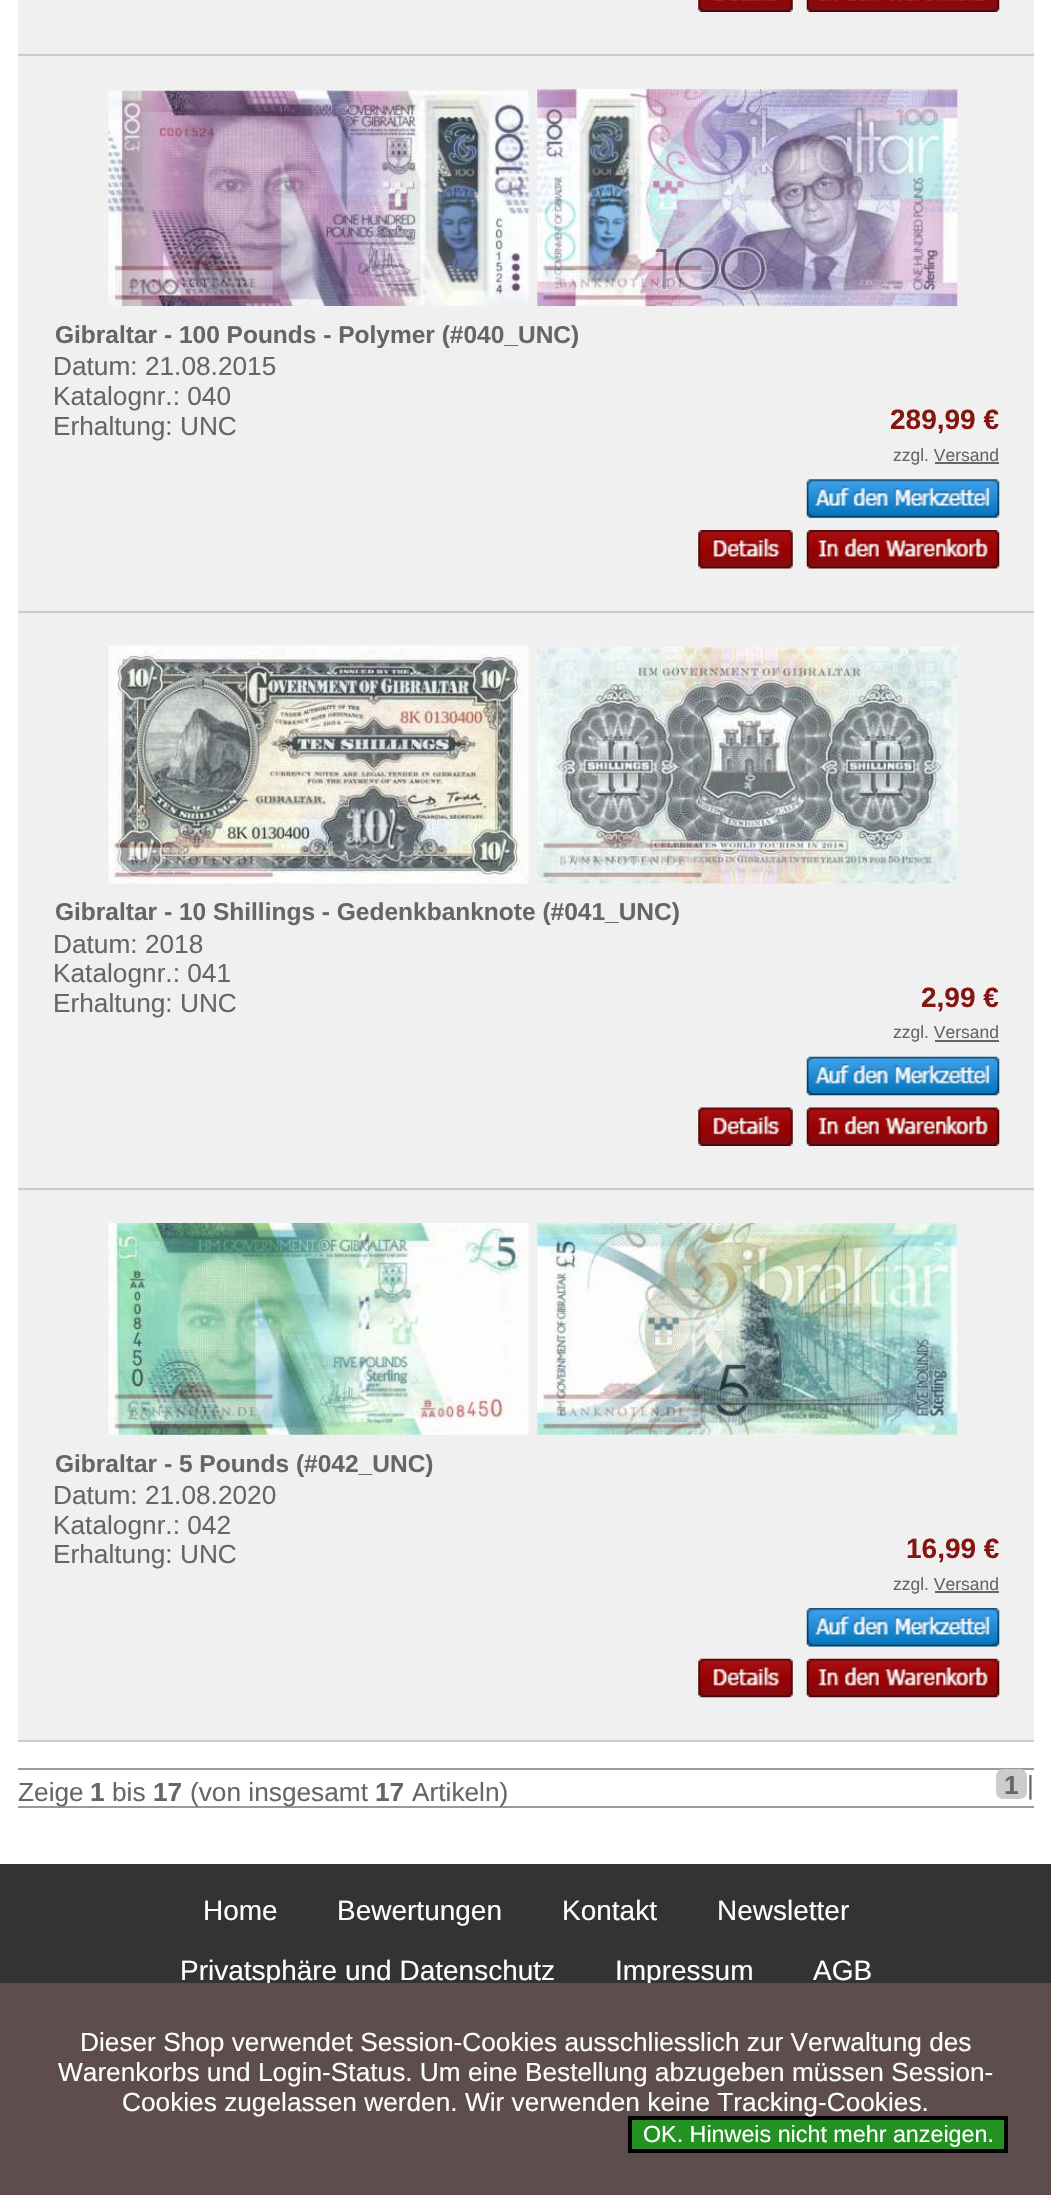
static SkFont makeFont(const char* family, int weight, float size, bool italic = false) {
  SkFontStyle style(weight, SkFontStyle::kNormal_Width,
    italic ? SkFontStyle::kItalic_Slant : SkFontStyle::kUpright_Slant);
  SkFont result(fontMgr->matchFamilyStyle(family, style), size);
  result.setSubpixel(true);
  return result;
}

static void text(SkCanvas* c, const char* s, float x, float y, const SkFont& font, SkColor color) {
  SkPaint ink(SkColor4f::FromColor(color));
  ink.setAntiAlias(true);
  c->drawString(s, x, y, font, ink);
}

static void box(SkCanvas* c, float l, float t, float r, float b, SkColor color) {
  SkPaint ink(SkColor4f::FromColor(color));
  ink.setAntiAlias(true);
  c->drawRect(SkRect::MakeLTRB(l, t, r, b), ink);
}

static void roundBox(SkCanvas* c, float l, float t, float r, float b, float radius, SkColor color) {
  SkPaint ink(SkColor4f::FromColor(color));
  ink.setAntiAlias(true);
  c->drawRoundRect(SkRect::MakeLTRB(l, t, r, b), radius, radius, ink);
}

static void picture(SkCanvas* c, const char* path, float l, float t, float r, float b) {
  auto image = SkImages::DeferredFromEncodedData(SkData::MakeFromFileName(path));
  c->drawImageRect(image, SkRect::MakeLTRB(l, t, r, b), SkSamplingOptions());
}

void draw(SkCanvas* c) {
  SkPaint paint;
  paint.setAntiAlias(true);
  c->clear(0xffffffff);
  box(c, 18, 0, 1034, 54, 0xfff0f0f0);
  box(c, 18, 54, 1034, 56, 0xffcccccc);
  picture(c, "img_01.png", 698, 0, 793, 12);
  picture(c, "img_02.png", 806, 0, 1000, 12);
  box(c, 18, 56, 1034, 611, 0xfff0f0f0);
  box(c, 18, 611, 1034, 613, 0xffcccccc);
  picture(c, "img_03.png", 108, 90, 529, 306);
  picture(c, "img_04.png", 537, 89, 958, 306);
  SkFont face1 = makeFont("Liberation Sans", 700, 24.5f);
  text(c, "Gibraltar - 100 Pounds - Polymer (#040_UNC)", 55, 343, face1, 0xff666666);
  SkFont face2 = makeFont("Liberation Sans", 400, 26.25f);
  text(c, "Datum: 21.08.2015", 53, 375, face2, 0xff666666);
  text(c, "Katalognr.: 040", 53, 405, face2, 0xff666666);
  text(c, "Erhaltung: UNC", 53, 435, face2, 0xff666666);
  SkFont face3 = makeFont("Liberation Sans", 700, 28);
  text(c, "289,99 €", 890, 429, face3, 0xff851511);
  SkFont face4 = makeFont("Liberation Sans", 400, 17.5f);
  text(c, "zzgl. Versand", 893, 461, face4, 0xff666666);
  box(c, 935, 462, 999, 464, 0xff666666);
  picture(c, "img_05.png", 806, 479, 1000, 518);
  picture(c, "img_06.png", 698, 530, 793, 569);
  picture(c, "img_07.png", 806, 530, 1000, 569);
  box(c, 18, 613, 1034, 1188, 0xfff0f0f0);
  box(c, 18, 1188, 1034, 1190, 0xffcccccc);
  picture(c, "img_08.png", 108, 645, 529, 884);
  picture(c, "img_09.png", 537, 647, 958, 884);
  text(c, "Gibraltar - 10 Shillings - Gedenkbanknote (#041_UNC)", 55, 920, face1, 0xff666666);
  text(c, "Datum: 2018", 53, 953, face2, 0xff666666);
  text(c, "Katalognr.: 041", 53, 982, face2, 0xff666666);
  text(c, "Erhaltung: UNC", 53, 1012, face2, 0xff666666);
  text(c, "2,99 €", 921, 1007, face3, 0xff851511);
  text(c, "zzgl. Versand", 893, 1038, face4, 0xff666666);
  box(c, 935, 1040, 999, 1042, 0xff666666);
  picture(c, "img_10.png", 806, 1056, 1000, 1096);
  picture(c, "img_11.png", 698, 1107, 793, 1146);
  picture(c, "img_12.png", 806, 1107, 1000, 1146);
  box(c, 18, 1190, 1034, 1740, 0xfff0f0f0);
  box(c, 18, 1740, 1034, 1742, 0xffcccccc);
  picture(c, "img_13.png", 108, 1223, 529, 1435);
  picture(c, "img_14.png", 537, 1223, 958, 1435);
  text(c, "Gibraltar - 5 Pounds (#042_UNC)", 55, 1472, face1, 0xff666666);
  text(c, "Datum: 21.08.2020", 53, 1504, face2, 0xff666666);
  text(c, "Katalognr.: 042", 53, 1534, face2, 0xff666666);
  text(c, "Erhaltung: UNC", 53, 1563, face2, 0xff666666);
  text(c, "16,99 €", 906, 1558, face3, 0xff851511);
  text(c, "zzgl. Versand", 893, 1590, face4, 0xff666666);
  box(c, 935, 1591, 999, 1593, 0xff666666);
  picture(c, "img_15.png", 806, 1608, 1000, 1647);
  picture(c, "img_16.png", 698, 1658, 793, 1698);
  picture(c, "img_17.png", 806, 1658, 1000, 1698);
  box(c, 18, 1768, 1034, 1770, 0xff999999);
  box(c, 18, 1806, 1034, 1808, 0xff999999);
  text(c, "Zeige", 18, 1801, face2, 0xff666666);
  SkFont face5 = makeFont("Liberation Sans", 700, 26.25f);
  text(c, "1", 90, 1801, face5, 0xff666666);
  text(c, "bis", 112, 1801, face2, 0xff666666);
  text(c, "17", 153, 1801, face5, 0xff666666);
  text(c, "(von insgesamt", 190, 1801, face2, 0xff666666);
  text(c, "17", 375, 1801, face5, 0xff666666);
  text(c, "Artikeln)", 412, 1801, face2, 0xff666666);
  roundBox(c, 996, 1769, 1027, 1799, 7, 0xffcccccc);
  text(c, "1", 1004, 1794, face5, 0xff666666);
  text(c, "|", 1027, 1794, face2, 0xff666666);
  box(c, 0, 1864, 1051, 1983, 0xff333333);
  SkFont face6 = makeFont("Liberation Sans", 400, 28);
  text(c, "Home", 203, 1920, face6, 0xffffffff);
  text(c, "Bewertungen", 337, 1920, face6, 0xffffffff);
  text(c, "Kontakt", 562, 1920, face6, 0xffffffff);
  text(c, "Newsletter", 717, 1920, face6, 0xffffffff);
  text(c, "Privatsphäre und Datenschutz", 180, 1980, face6, 0xffffffff);
  text(c, "Impressum", 615, 1980, face6, 0xffffffff);
  text(c, "AGB", 813, 1980, face6, 0xffffffff);
  box(c, 0, 1983, 1051, 2195, 0xff5e4d4d);
  text(c, "Dieser Shop verwendet Session-Cookies ausschliesslich zur Verwaltung des", 80, 2051, face2, 0xffffffff);
  text(c, "Warenkorbs und Login-Status. Um eine Bestellung abzugeben müssen Session-", 58, 2081, face2, 0xffffffff);
  paint.setColor(0xff239223);
  c->drawRect(SkRect::MakeLTRB(630, 2118, 1006, 2151), paint);
  paint.setStyle(SkPaint::kStroke_Style);
  paint.setStrokeWidth(4);
  paint.setColor(0xff000000);
  c->drawRect(SkRect::MakeLTRB(630, 2118, 1006, 2151), paint);
  text(c, "Cookies zugelassen werden. Wir verwenden keine Tracking-Cookies.", 122, 2111, face2, 0xffffffff);
  SkFont face7 = makeFont("Liberation Sans", 400, 23.3f);
  text(c, "OK. Hinweis nicht mehr anzeigen.", 643, 2142, face7, 0xffffffff);
}
